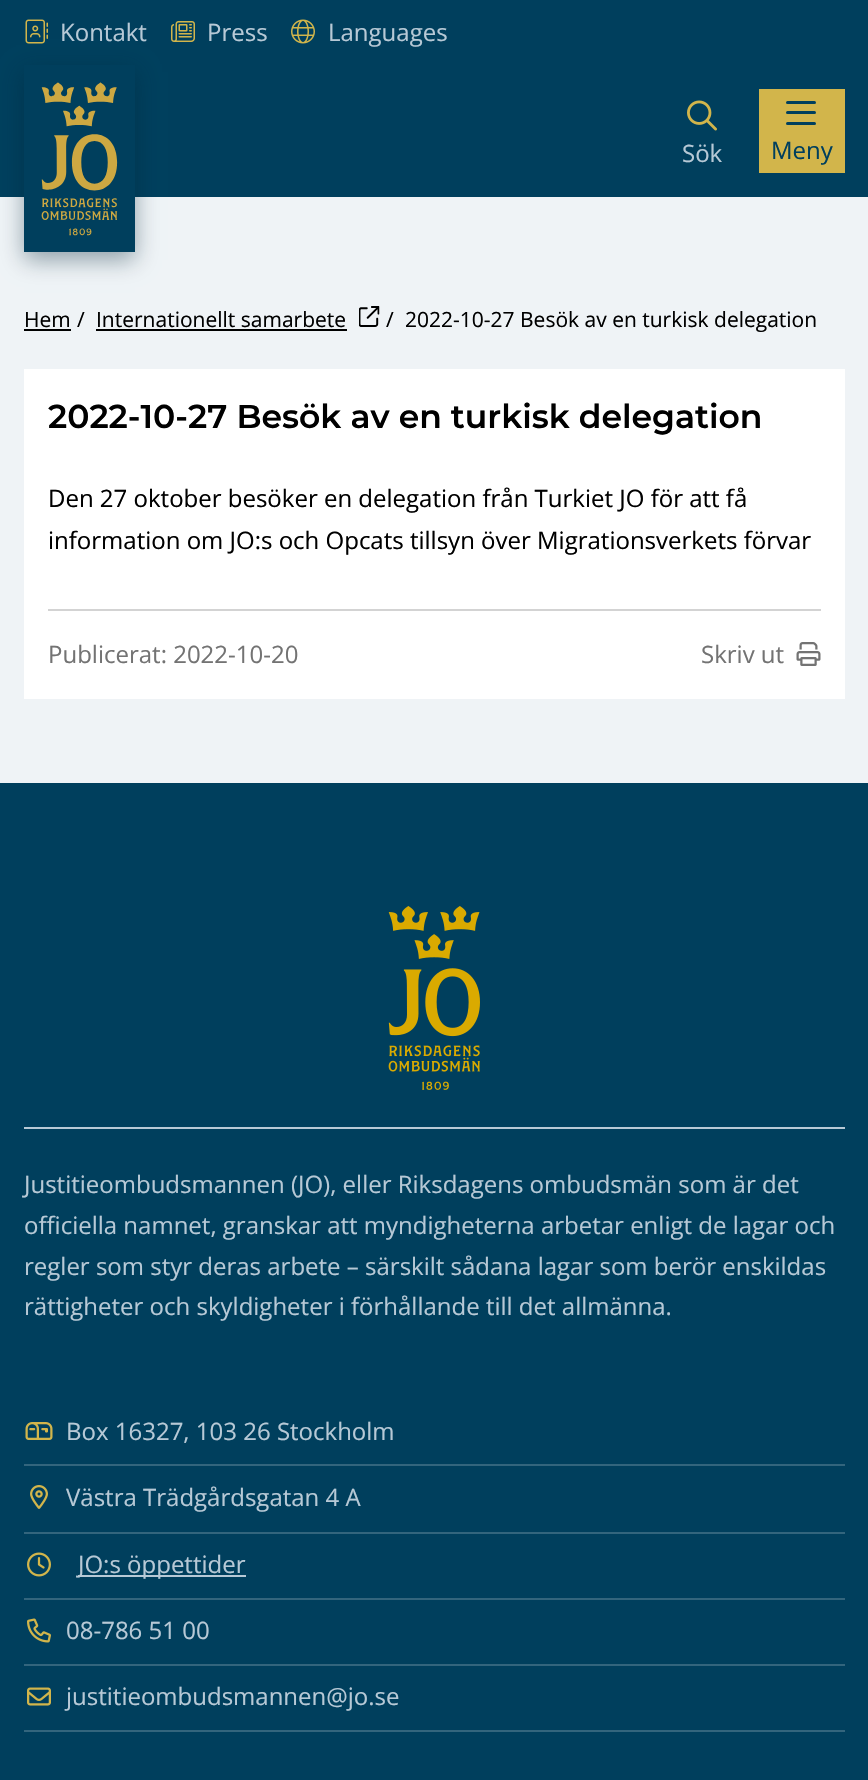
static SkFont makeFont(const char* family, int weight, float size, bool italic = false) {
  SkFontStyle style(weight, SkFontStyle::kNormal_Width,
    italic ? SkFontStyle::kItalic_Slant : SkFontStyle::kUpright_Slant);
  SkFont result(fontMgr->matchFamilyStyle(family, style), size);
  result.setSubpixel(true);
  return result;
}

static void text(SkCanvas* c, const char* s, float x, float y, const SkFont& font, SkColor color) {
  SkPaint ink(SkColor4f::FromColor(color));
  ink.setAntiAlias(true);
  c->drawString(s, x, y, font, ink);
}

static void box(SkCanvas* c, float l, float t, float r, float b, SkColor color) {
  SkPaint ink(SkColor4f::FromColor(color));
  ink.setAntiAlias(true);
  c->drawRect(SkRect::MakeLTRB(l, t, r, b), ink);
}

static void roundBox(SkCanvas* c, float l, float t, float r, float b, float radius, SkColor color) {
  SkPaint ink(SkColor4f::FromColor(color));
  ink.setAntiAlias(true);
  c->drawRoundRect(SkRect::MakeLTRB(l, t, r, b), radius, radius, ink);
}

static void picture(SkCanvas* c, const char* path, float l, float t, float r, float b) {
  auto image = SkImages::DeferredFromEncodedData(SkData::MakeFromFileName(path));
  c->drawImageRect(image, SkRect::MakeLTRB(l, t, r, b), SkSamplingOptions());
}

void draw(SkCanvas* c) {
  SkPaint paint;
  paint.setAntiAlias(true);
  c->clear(0xffeff3f6);
  box(c, 0, 0, 868, 197, 0xff003f5d);
  c->save();
  c->clipPath(SkPathBuilder(SkPathFillType::kEvenOdd).moveTo(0, 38).lineTo(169, 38).lineTo(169, 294).lineTo(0, 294).close().moveTo(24, 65).lineTo(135, 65).lineTo(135, 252).lineTo(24, 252).close().detach(), true);
  paint.setColor(0x66002435);
  paint.setMaskFilter(SkMaskFilter::MakeBlur(kNormal_SkBlurStyle, 11));
  c->drawRect(SkRect::MakeLTRB(24, 72, 135, 260), paint);
  paint.setMaskFilter(nullptr);
  c->restore();
  picture(c, "img_01.png", 25, 19, 48, 44);
  SkFont face1 = makeFont("Open Sans", 400, 24);
  text(c, "Kontakt", 60, 41, face1, 0xffb7c9d6);
  picture(c, "img_02.png", 171, 21, 195, 42);
  text(c, "Press", 207, 41, face1, 0xffb7c9d6);
  picture(c, "img_03.png", 291, 19, 315, 44);
  text(c, "Languages", 328, 41, face1, 0xffb7c9d6);
  picture(c, "img_04.png", 24, 82, 135, 252);
  picture(c, "img_05.png", 687, 100, 717, 131);
  text(c, "Sök", 682, 162, face1, 0xffb7c9d6);
  box(c, 759, 89, 845, 173, 0xffd2b54b);
  roundBox(c, 786, 101, 816, 104, 1.5f, 0xff003f5d);
  roundBox(c, 786, 111, 816, 114, 1.5f, 0xff003f5d);
  roundBox(c, 786, 122, 816, 125, 1.5f, 0xff003f5d);
  text(c, "Meny", 771, 159, face1, 0xff003f5d);
  SkFont face2 = makeFont("Open Sans", 400, 21);
  text(c, "Hem", 24, 327, face2, 0xff000000);
  box(c, 24, 329, 71, 331, 0xff000000);
  text(c, "/", 77, 327, face2, 0xff000000);
  text(c, "Internationellt samarbete", 96, 327, face2, 0xff000000);
  box(c, 96, 329, 347, 331, 0xff000000);
  picture(c, "img_06.png", 359, 306, 380, 327);
  text(c, "/", 386, 327, face2, 0xff000000);
  text(c, "2022-10-27 Besök av en turkisk delegation", 405, 327, face2, 0xff000000);
  box(c, 24, 369, 845, 699, 0xffffffff);
  SkFont face3 = makeFont("Montserrat", 600, 33);
  text(c, "2022-10-27 Besök av en turkisk delegation", 48, 428, face3, 0xff000000);
  text(c, "Den 27 oktober besöker en delegation från Turkiet JO för att få", 48, 507, face1, 0xff000000);
  text(c, "information om JO:s och Opcats tillsyn över Migrationsverkets förvar", 48, 549, face1, 0xff000000);
  box(c, 48, 609, 821, 611, 0xffd3d3d3);
  text(c, "Publicerat: 2022-10-20", 48, 663, face1, 0xff737373);
  text(c, "Skriv ut", 701, 663, face1, 0xff737373);
  picture(c, "img_07.png", 796, 642, 821, 666);
  box(c, 0, 783, 868, 1780, 0xff003f5d);
  picture(c, "img_08.png", 388, 906, 480, 1090);
  box(c, 24, 1127, 845, 1129, 0xffb7c9d6);
  text(c, "Justitieombudsmannen (JO), eller Riksdagens ombudsmän som är det", 24, 1193, face1, 0xffb7c9d6);
  text(c, "officiella namnet, granskar att myndigheterna arbetar enligt de lagar och", 24, 1234, face1, 0xffb7c9d6);
  text(c, "regler som styr deras arbete – särskilt sådana lagar som berör enskildas", 24, 1275, face1, 0xffb7c9d6);
  text(c, "rättigheter och skyldigheter i förhållande till det allmänna.", 24, 1315, face1, 0xffb7c9d6);
  box(c, 24, 1464, 845, 1466, 0xff33657d);
  picture(c, "img_09.png", 25, 1422, 53, 1440);
  text(c, "Box 16327, 103 26 Stockholm", 66, 1440, face1, 0xffb7c9d6);
  box(c, 24, 1532, 845, 1534, 0xff33657d);
  picture(c, "img_10.png", 30, 1485, 48, 1509);
  text(c, "Västra Trädgårdsgatan 4 A", 66, 1506, face1, 0xffb7c9d6);
  box(c, 24, 1598, 845, 1600, 0xff33657d);
  picture(c, "img_11.png", 27, 1552, 51, 1577);
  box(c, 78, 1575, 246, 1577, 0xffb7c9d6);
  text(c, "JO:s öppettider", 78, 1573, face1, 0xffb7c9d6);
  box(c, 24, 1664, 845, 1666, 0xff33657d);
  picture(c, "img_12.png", 27, 1618, 51, 1643);
  text(c, "08-786 51 00", 66, 1639, face1, 0xffb7c9d6);
  box(c, 24, 1730, 845, 1732, 0xff33657d);
  picture(c, "img_13.png", 27, 1687, 51, 1706);
  text(c, "justitieombudsmannen@jo.se", 66, 1705, face1, 0xffb7c9d6);
}
